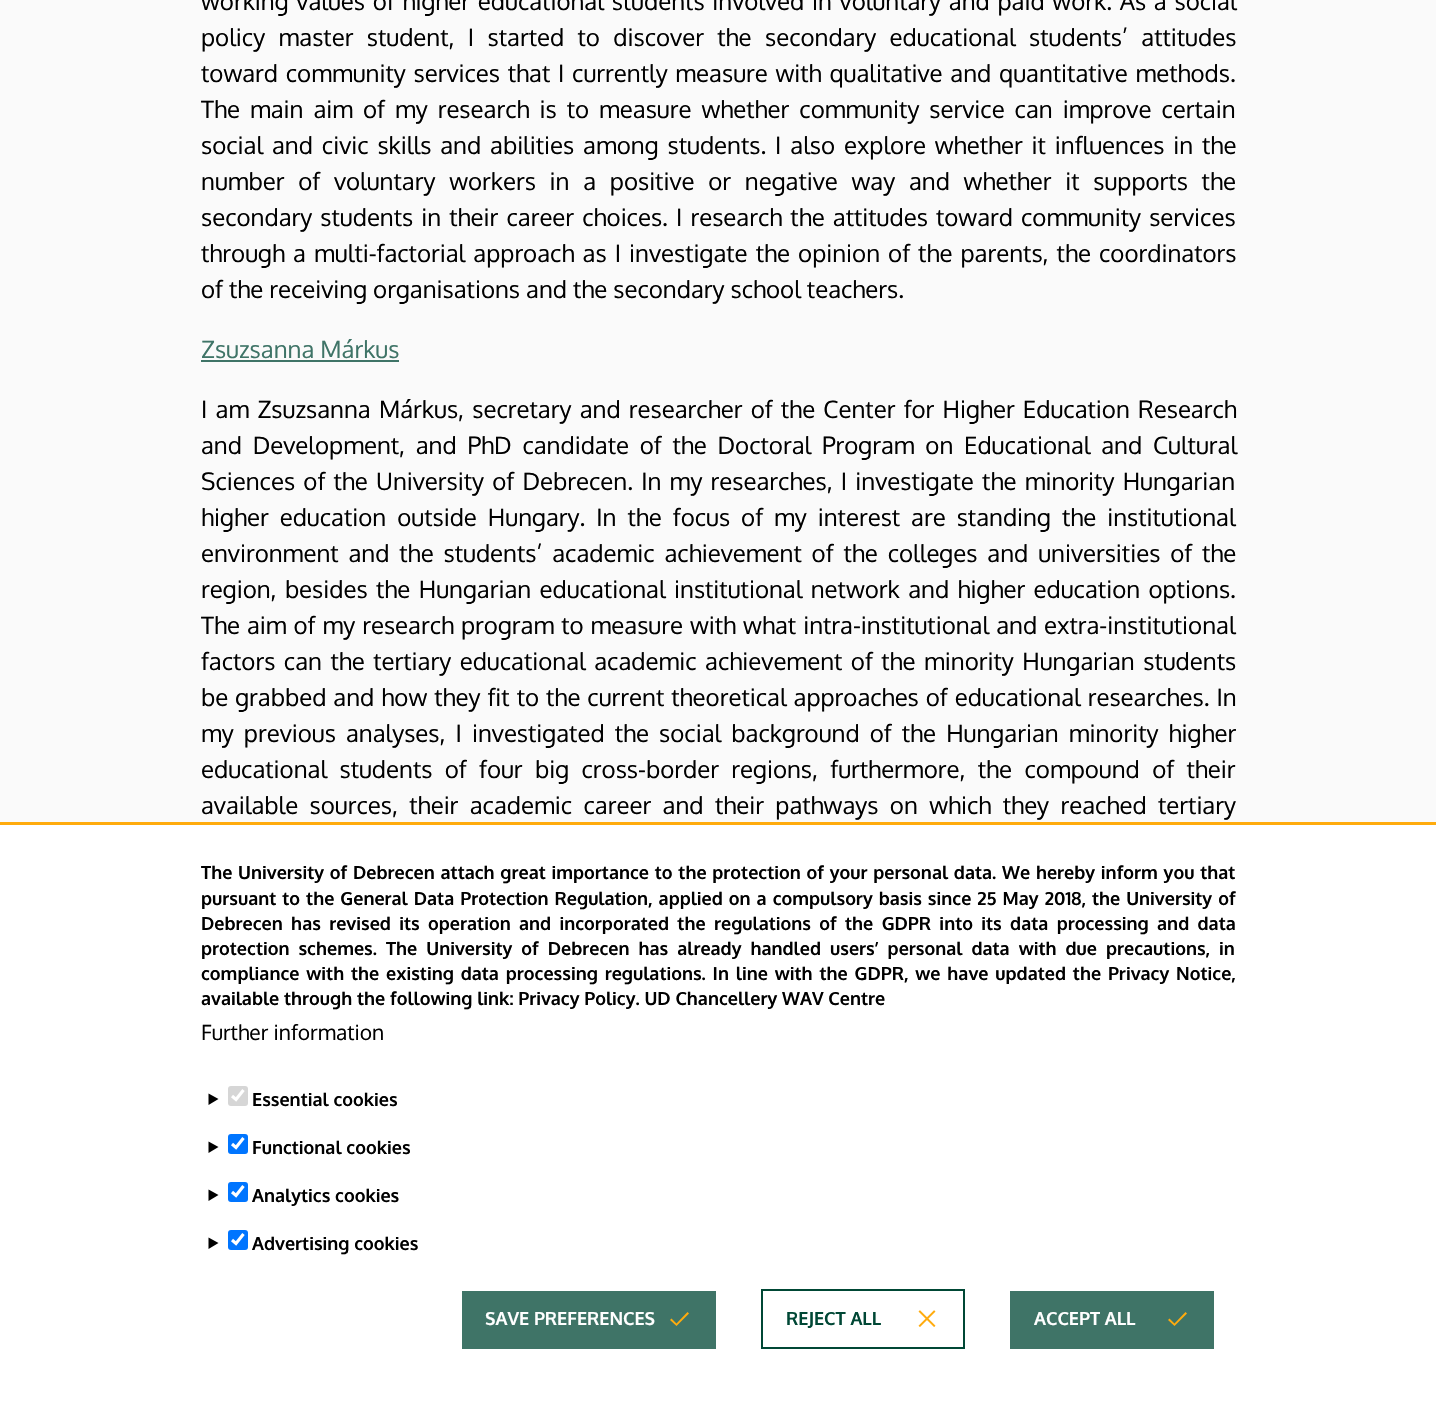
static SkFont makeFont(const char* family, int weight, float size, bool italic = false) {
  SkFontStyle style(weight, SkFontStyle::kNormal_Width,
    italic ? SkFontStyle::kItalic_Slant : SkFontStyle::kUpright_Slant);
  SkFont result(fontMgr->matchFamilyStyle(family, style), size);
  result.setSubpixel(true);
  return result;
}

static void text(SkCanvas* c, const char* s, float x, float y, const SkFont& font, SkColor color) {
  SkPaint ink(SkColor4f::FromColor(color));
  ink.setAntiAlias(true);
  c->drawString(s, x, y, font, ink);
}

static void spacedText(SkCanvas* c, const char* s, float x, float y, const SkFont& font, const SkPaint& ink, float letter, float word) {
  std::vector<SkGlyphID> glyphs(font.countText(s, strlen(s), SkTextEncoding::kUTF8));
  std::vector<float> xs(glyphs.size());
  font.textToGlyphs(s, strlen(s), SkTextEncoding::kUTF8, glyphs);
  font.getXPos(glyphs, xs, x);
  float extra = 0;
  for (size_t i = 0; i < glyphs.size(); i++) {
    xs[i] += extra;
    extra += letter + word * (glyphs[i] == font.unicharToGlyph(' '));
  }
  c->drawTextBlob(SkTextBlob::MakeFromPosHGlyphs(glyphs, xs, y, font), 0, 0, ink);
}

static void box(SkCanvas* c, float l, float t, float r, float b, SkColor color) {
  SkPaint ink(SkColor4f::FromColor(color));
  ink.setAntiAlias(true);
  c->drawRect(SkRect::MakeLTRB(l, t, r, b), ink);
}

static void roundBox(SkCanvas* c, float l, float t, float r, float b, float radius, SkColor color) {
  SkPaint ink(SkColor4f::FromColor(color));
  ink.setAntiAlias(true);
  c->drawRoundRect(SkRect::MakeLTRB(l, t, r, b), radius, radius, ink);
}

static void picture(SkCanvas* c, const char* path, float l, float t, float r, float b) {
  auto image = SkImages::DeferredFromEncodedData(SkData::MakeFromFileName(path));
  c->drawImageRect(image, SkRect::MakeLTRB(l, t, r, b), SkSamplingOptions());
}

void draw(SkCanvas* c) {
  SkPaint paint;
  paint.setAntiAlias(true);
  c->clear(0xfffafafa);
  SkFont face1 = makeFont("Oxygen", 400, 24);
  paint.setColor(0xff000000);
  spacedText(c, "working values of higher educational students involved in voluntary and paid work. As a social", 201, 10, face1, paint, 0, 1.75f);
  spacedText(c, "policy master student, I started to discover the secondary educational students’ attitudes", 201, 46, face1, paint, 0, 7.4f);
  spacedText(c, "toward community services that I currently measure with qualitative and quantitative methods.", 201, 82, face1, paint, 0, 1.75f);
  spacedText(c, "The main aim of my research is to measure whether community service can improve certain", 201, 118, face1, paint, 0, 4);
  spacedText(c, "social and civic skills and abilities among students. I also explore whether it influences in the", 201, 154, face1, paint, 0, 2.9f);
  spacedText(c, "number of voluntary workers in a positive or negative way and whether it supports the", 201, 190, face1, paint, 0, 7.75f);
  spacedText(c, "secondary students in their career choices. I research the attitudes toward community services", 201, 226, face1, paint, 0, 2.1f);
  spacedText(c, "through a multi-factorial approach as I investigate the opinion of the parents, the coordinators", 201, 262, face1, paint, 0, 2.1f);
  text(c, "of the receiving organisations and the secondary school teachers.", 201, 298, face1, 0xff000000);
  text(c, "Zsuzsanna Márkus", 201, 358, face1, 0xff3f7467);
  box(c, 201, 360, 399, 362, 0xff3f7467);
  spacedText(c, "I am Zsuzsanna Márkus, secretary and researcher of the Center for Higher Education Research", 201, 418, face1, paint, 0, 2.25f);
  spacedText(c, "and Development, and PhD candidate of the Doctoral Program on Educational and Cultural", 201, 454, face1, paint, 0, 4.75f);
  spacedText(c, "Sciences of the University of Debrecen. In my researches, I investigate the minority Hungarian", 201, 490, face1, paint, 0, 2.25f);
  spacedText(c, "higher education outside Hungary. In the focus of my interest are standing the institutional", 201, 526, face1, paint, 0, 5);
  spacedText(c, "environment and the students’ academic achievement of the colleges and universities of the", 201, 562, face1, paint, 0, 3.9f);
  spacedText(c, "region, besides the Hungarian educational institutional network and higher education options.", 201, 598, face1, paint, 0, 2.4f);
  spacedText(c, "The aim of my research program to measure with what intra-institutional and extra-institutional", 201, 634, face1, paint, 0, 1);
  spacedText(c, "factors can the tertiary educational academic achievement of the minority Hungarian students", 201, 670, face1, paint, 0, 2.5f);
  spacedText(c, "be grabbed and how they fit to the current theoretical approaches of educational researches. In", 201, 706, face1, paint, 0, 1);
  spacedText(c, "my previous analyses, I investigated the social background of the Hungarian minority higher", 201, 742, face1, paint, 0, 4.1f);
  spacedText(c, "educational students of four big cross-border regions, furthermore, the compound of their", 201, 778, face1, paint, 0, 6.4f);
  spacedText(c, "available sources, their academic career and their pathways on which they reached tertiary", 201, 814, face1, paint, 0, 5.4f);
  box(c, 0, 825, 1436, 1407, 0xffffffff);
  box(c, 0, 822, 1436, 825, 0xffffab0d);
  SkFont face2 = makeFont("Oxygen", 700, 18);
  spacedText(c, "The University of Debrecen attach great importance to the protection of your personal data. We hereby inform you that", 201, 879, face2, paint, 0, 1);
  spacedText(c, "pursuant to the General Data Protection Regulation, applied on a compulsory basis since 25 May 2018, the University of", 201, 905, face2, paint, 0, 1.25f);
  spacedText(c, "Debrecen has revised its operation and incorporated the regulations of the GDPR into its data processing and data", 201, 930, face2, paint, 0, 3.6f);
  spacedText(c, "protection schemes. The University of Debrecen has already handled users’ personal data with due precautions, in", 201, 955, face2, paint, 0, 4.25f);
  spacedText(c, "compliance with the existing data processing regulations. In line with the GDPR, we have updated the Privacy Notice,", 201, 980, face2, paint, 0, 2.1f);
  text(c, "available through the following link: Privacy Policy. UD Chancellery WAV Centre", 201, 1005, face2, 0xff000000);
  SkFont face3 = makeFont("Oxygen", 400, 21);
  text(c, "Further information", 201, 1040, face3, 0xff000000);
  c->drawPath(SkPathBuilder().moveTo(208.5f, 1093.5f).lineTo(218.5f, 1099).lineTo(208.5f, 1105).close().detach(), paint);
  roundBox(c, 228, 1086, 248, 1106, 3, 0xffd6d6d6);
  paint.setStyle(SkPaint::kStroke_Style);
  paint.setStrokeWidth(3.1f);
  paint.setColor(0xffffffff);
  c->drawPath(SkPathBuilder().moveTo(232, 1096).lineTo(236, 1099.5f).lineTo(243.5f, 1090).detach(), paint);
  text(c, "Essential cookies", 252, 1106, face2, 0xff000000);
  paint.setStyle(SkPaint::kFill_Style);
  paint.setColor(0xff000000);
  c->drawPath(SkPathBuilder().moveTo(208.5f, 1141.5f).lineTo(218.5f, 1147).lineTo(208.5f, 1153).close().detach(), paint);
  roundBox(c, 228, 1134, 248, 1154, 3, 0xff0075ff);
  paint.setStyle(SkPaint::kStroke_Style);
  paint.setColor(0xffffffff);
  c->drawPath(SkPathBuilder().moveTo(232, 1144).lineTo(236, 1147.5f).lineTo(243.5f, 1138).detach(), paint);
  text(c, "Functional cookies", 252, 1154, face2, 0xff000000);
  paint.setStyle(SkPaint::kFill_Style);
  paint.setColor(0xff000000);
  c->drawPath(SkPathBuilder().moveTo(208.5f, 1189.5f).lineTo(218.5f, 1195).lineTo(208.5f, 1201).close().detach(), paint);
  roundBox(c, 228, 1182, 248, 1202, 3, 0xff0075ff);
  paint.setStyle(SkPaint::kStroke_Style);
  paint.setColor(0xffffffff);
  c->drawPath(SkPathBuilder().moveTo(232, 1192).lineTo(236, 1195.5f).lineTo(243.5f, 1186).detach(), paint);
  text(c, "Analytics cookies", 252, 1202, face2, 0xff000000);
  paint.setStyle(SkPaint::kFill_Style);
  paint.setColor(0xff000000);
  c->drawPath(SkPathBuilder().moveTo(208.5f, 1237.5f).lineTo(218.5f, 1243).lineTo(208.5f, 1249).close().detach(), paint);
  roundBox(c, 228, 1230, 248, 1250, 3, 0xff0075ff);
  paint.setStyle(SkPaint::kStroke_Style);
  paint.setColor(0xffffffff);
  c->drawPath(SkPathBuilder().moveTo(232, 1240).lineTo(236, 1243.5f).lineTo(243.5f, 1234).detach(), paint);
  text(c, "Advertising cookies", 252, 1250, face2, 0xff000000);
  box(c, 462, 1291, 716, 1349, 0xff3f7467);
  text(c, "SAVE PREFERENCES", 485, 1325, face2, 0xffffffff);
  paint.setStyle(SkPaint::kFill_Style);
  paint.setColor(0xffffab0d);
  c->drawPath(SkPathBuilder().moveTo(676.5f, 1326).lineTo(689, 1313.5f).lineTo(687.5f, 1312).lineTo(676.5f, 1323.5f).lineTo(671.5f, 1318.5f).lineTo(670, 1320).close().detach(), paint);
  paint.setStyle(SkPaint::kStroke_Style);
  paint.setStrokeWidth(2);
  paint.setColor(0xff004735);
  c->drawRect(SkRect::MakeLTRB(762, 1290, 964, 1348), paint);
  text(c, "REJECT ALL", 786, 1325, face2, 0xff004735);
  picture(c, "img_01.png", 918, 1310, 936, 1327);
  box(c, 1010, 1291, 1214, 1349, 0xff3f7467);
  text(c, "ACCEPT ALL", 1034, 1325, face2, 0xffffffff);
  paint.setStyle(SkPaint::kFill_Style);
  paint.setColor(0xffffab0d);
  c->drawPath(SkPathBuilder().moveTo(1174.5f, 1326).lineTo(1187, 1313.5f).lineTo(1185.5f, 1312).lineTo(1174.5f, 1323.5f).lineTo(1169.5f, 1318.5f).lineTo(1168, 1320).close().detach(), paint);
}
